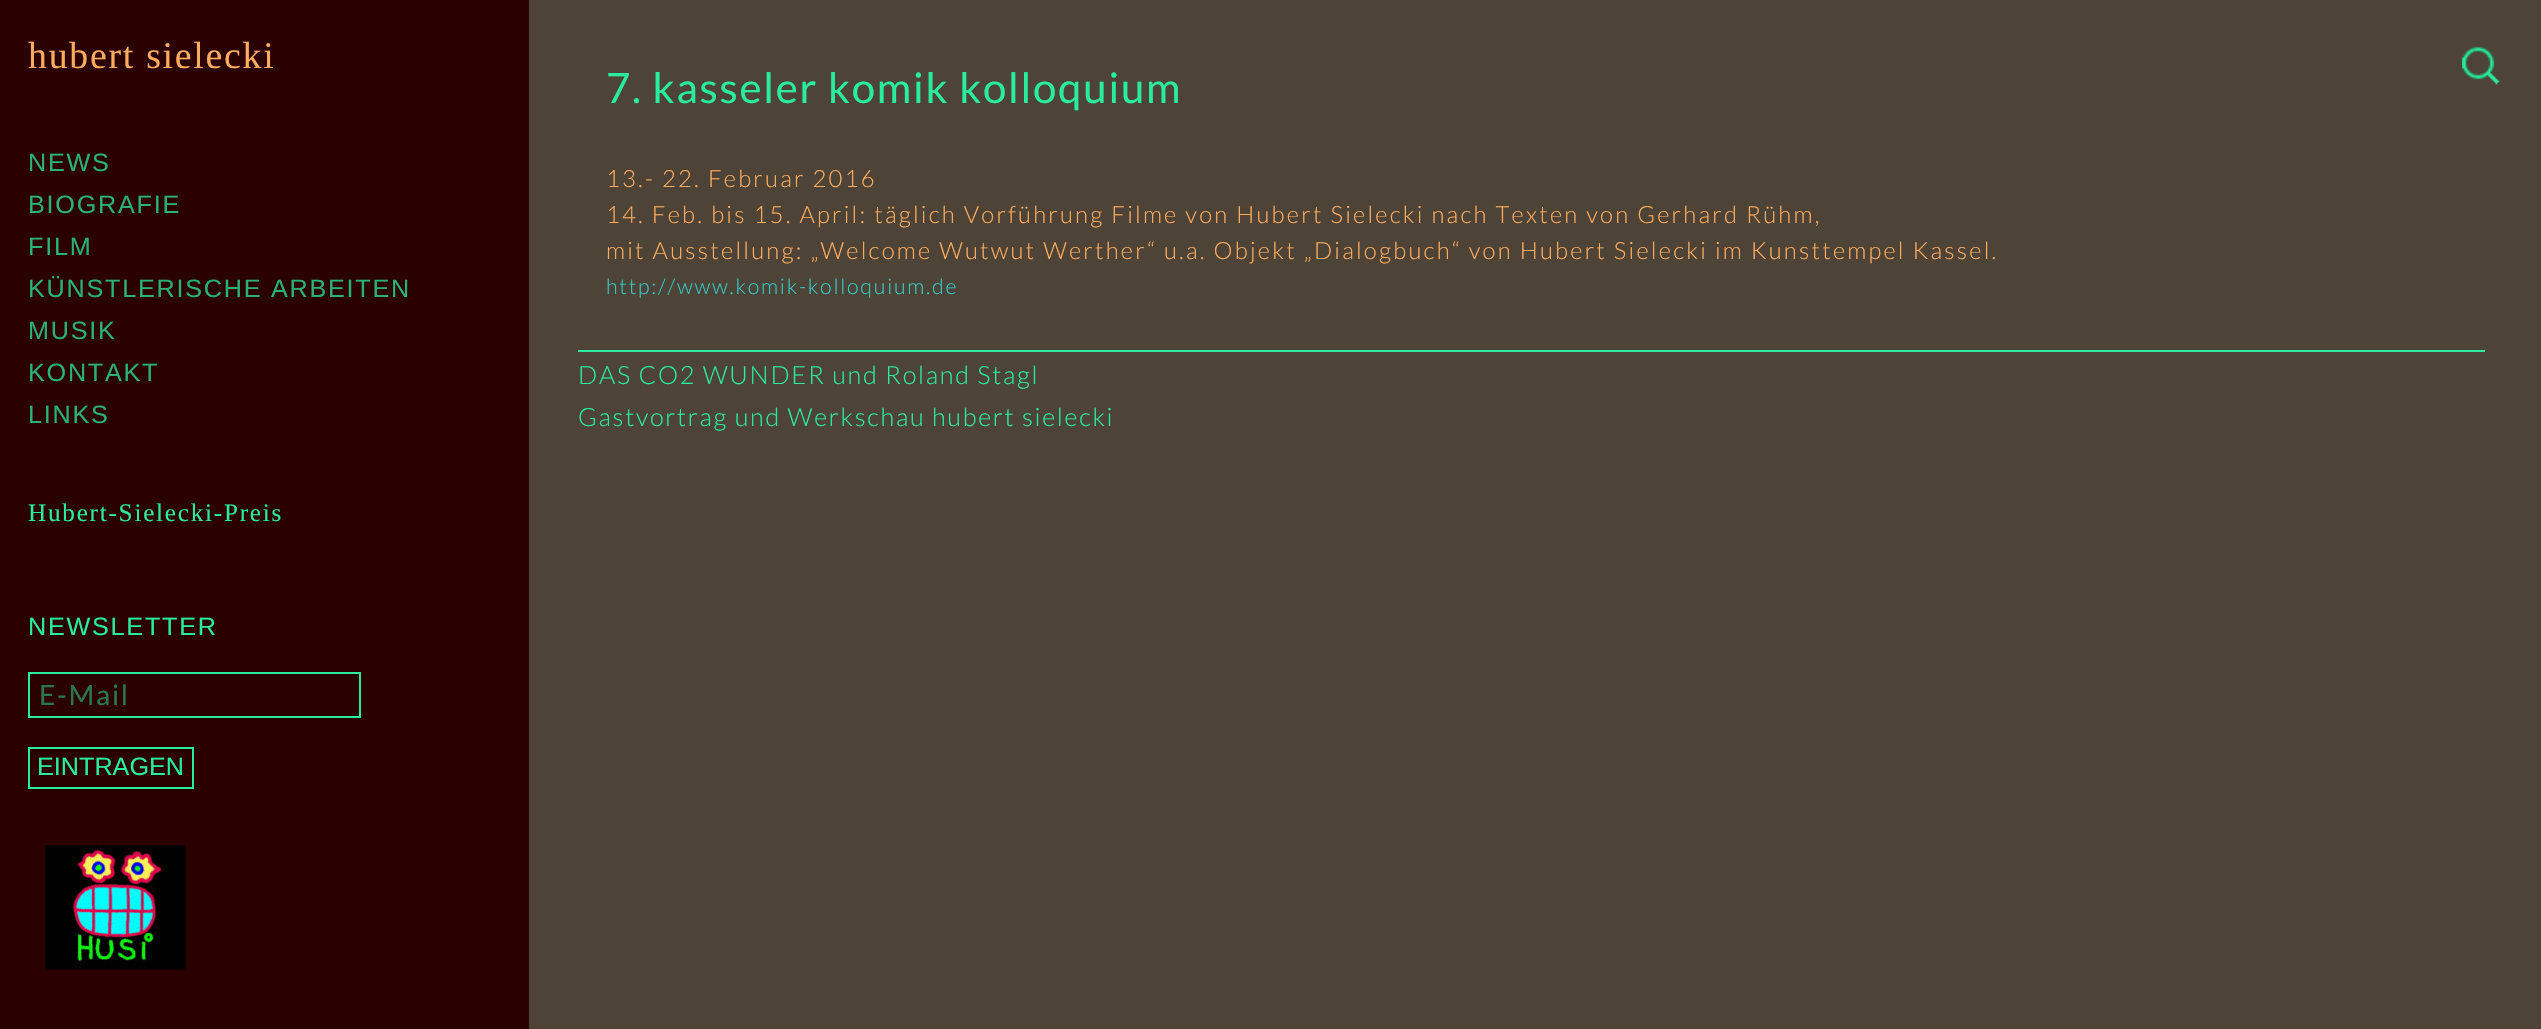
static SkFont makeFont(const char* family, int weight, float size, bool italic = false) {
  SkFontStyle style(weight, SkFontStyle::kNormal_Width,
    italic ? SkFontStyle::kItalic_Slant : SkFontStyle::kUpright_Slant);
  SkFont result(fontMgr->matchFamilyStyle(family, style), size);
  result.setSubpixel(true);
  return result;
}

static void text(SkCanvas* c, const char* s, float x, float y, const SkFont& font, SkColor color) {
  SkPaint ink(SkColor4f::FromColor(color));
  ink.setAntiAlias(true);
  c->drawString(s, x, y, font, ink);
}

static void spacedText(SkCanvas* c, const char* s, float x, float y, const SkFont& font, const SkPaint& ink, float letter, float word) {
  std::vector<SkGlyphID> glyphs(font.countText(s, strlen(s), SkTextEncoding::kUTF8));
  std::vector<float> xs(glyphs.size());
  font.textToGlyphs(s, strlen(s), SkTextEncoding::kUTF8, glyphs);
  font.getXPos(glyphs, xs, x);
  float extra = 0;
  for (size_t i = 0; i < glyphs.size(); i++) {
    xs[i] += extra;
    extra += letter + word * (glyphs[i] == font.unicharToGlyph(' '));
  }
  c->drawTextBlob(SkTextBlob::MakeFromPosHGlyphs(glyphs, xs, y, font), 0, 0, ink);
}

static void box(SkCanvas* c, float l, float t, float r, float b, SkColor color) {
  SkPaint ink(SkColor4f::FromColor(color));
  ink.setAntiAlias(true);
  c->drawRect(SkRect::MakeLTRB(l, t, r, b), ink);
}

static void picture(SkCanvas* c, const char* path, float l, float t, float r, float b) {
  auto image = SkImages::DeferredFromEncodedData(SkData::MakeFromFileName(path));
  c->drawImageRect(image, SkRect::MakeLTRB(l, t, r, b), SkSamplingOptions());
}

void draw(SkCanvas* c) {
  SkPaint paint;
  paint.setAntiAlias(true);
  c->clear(0xff4d4336);
  box(c, 0, 0, 529, 1029, 0xff2a0000);
  SkFont face1 = makeFont("Liberation Serif", 400, 37.75f);
  paint.setColor(0xffffac5e);
  spacedText(c, "hubert sielecki", 28, 68, face1, paint, 1.75f, 0);
  SkFont face2 = makeFont("Liberation Sans", 400, 25.2f);
  paint.setColor(0xff29b177);
  spacedText(c, "NEWS", 28, 171, face2, paint, 1.75f, 0);
  spacedText(c, "BIOGRAFIE", 28, 213, face2, paint, 1.75f, 0);
  spacedText(c, "FILM", 28, 255, face2, paint, 1.75f, 0);
  spacedText(c, "KÜNSTLERISCHE ARBEITEN", 28, 297, face2, paint, 1.75f, 0);
  spacedText(c, "MUSIK", 28, 339, face2, paint, 1.75f, 0);
  spacedText(c, "KONTAKT", 28, 381, face2, paint, 1.75f, 0);
  spacedText(c, "LINKS", 28, 423, face2, paint, 1.75f, 0);
  SkFont face3 = makeFont("Liberation Serif", 400, 25.2f);
  paint.setColor(0xff29ec9e);
  spacedText(c, "Hubert-Sielecki-Preis", 28, 521, face3, paint, 1.75f, 0);
  spacedText(c, "NEWSLETTER", 28, 635, face2, paint, 1.75f, 0);
  paint.setStyle(SkPaint::kStroke_Style);
  paint.setStrokeWidth(2);
  c->drawRect(SkRect::MakeLTRB(29, 673, 360, 717), paint);
  SkFont face4 = makeFont("Lato", 400, 28);
  paint.setStyle(SkPaint::kFill_Style);
  paint.setColor(0xff2a764f);
  spacedText(c, "E-Mail", 39, 705, face4, paint, 1.75f, 0);
  paint.setStyle(SkPaint::kStroke_Style);
  paint.setColor(0xff29ec9e);
  c->drawRect(SkRect::MakeLTRB(29, 748, 193, 788), paint);
  text(c, "EINTRAGEN", 37, 775, face2, 0xff29ec9e);
  picture(c, "img_01.png", 45, 845, 186, 970);
  picture(c, "img_02.png", 2462, 46, 2500, 85);
  box(c, 578, 350, 2485, 352, 0xff29ec9e);
  SkFont face5 = makeFont("Lato", 400, 42);
  paint.setStyle(SkPaint::kFill_Style);
  spacedText(c, "7. kasseler komik kolloquium", 606, 103, face5, paint, 1.75f, 0);
  SkFont face6 = makeFont("Lato", 300, 23.8f);
  paint.setColor(0xffffac5e);
  spacedText(c, "13.- 22. Februar 2016", 606, 187, face6, paint, 2.24f, 0);
  spacedText(c, "14. Feb. bis 15. April: täglich Vorführung Filme von Hubert Sielecki nach Texten von Gerhard Rühm,", 606, 223, face6, paint, 2.24f, 0);
  spacedText(c, "mit Ausstellung: „Welcome Wutwut Werther“ u.a. Objekt „Dialogbuch“ von Hubert Sielecki im Kunsttempel Kassel.", 606, 259, face6, paint, 2.24f, 0);
  SkFont face7 = makeFont("Lato", 300, 21.4f);
  paint.setColor(0xff33cccc);
  spacedText(c, "http://www.komik-kolloquium.de", 606, 294, face7, paint, 1.75f, 0);
  SkFont face8 = makeFont("Lato", 300, 25.2f);
  paint.setColor(0xff29ec9e);
  spacedText(c, "DAS CO2 WUNDER und Roland Stagl", 578, 384, face8, paint, 1.75f, 0);
  spacedText(c, "Gastvortrag und Werkschau hubert sielecki", 578, 426, face8, paint, 1.75f, 0);
}
